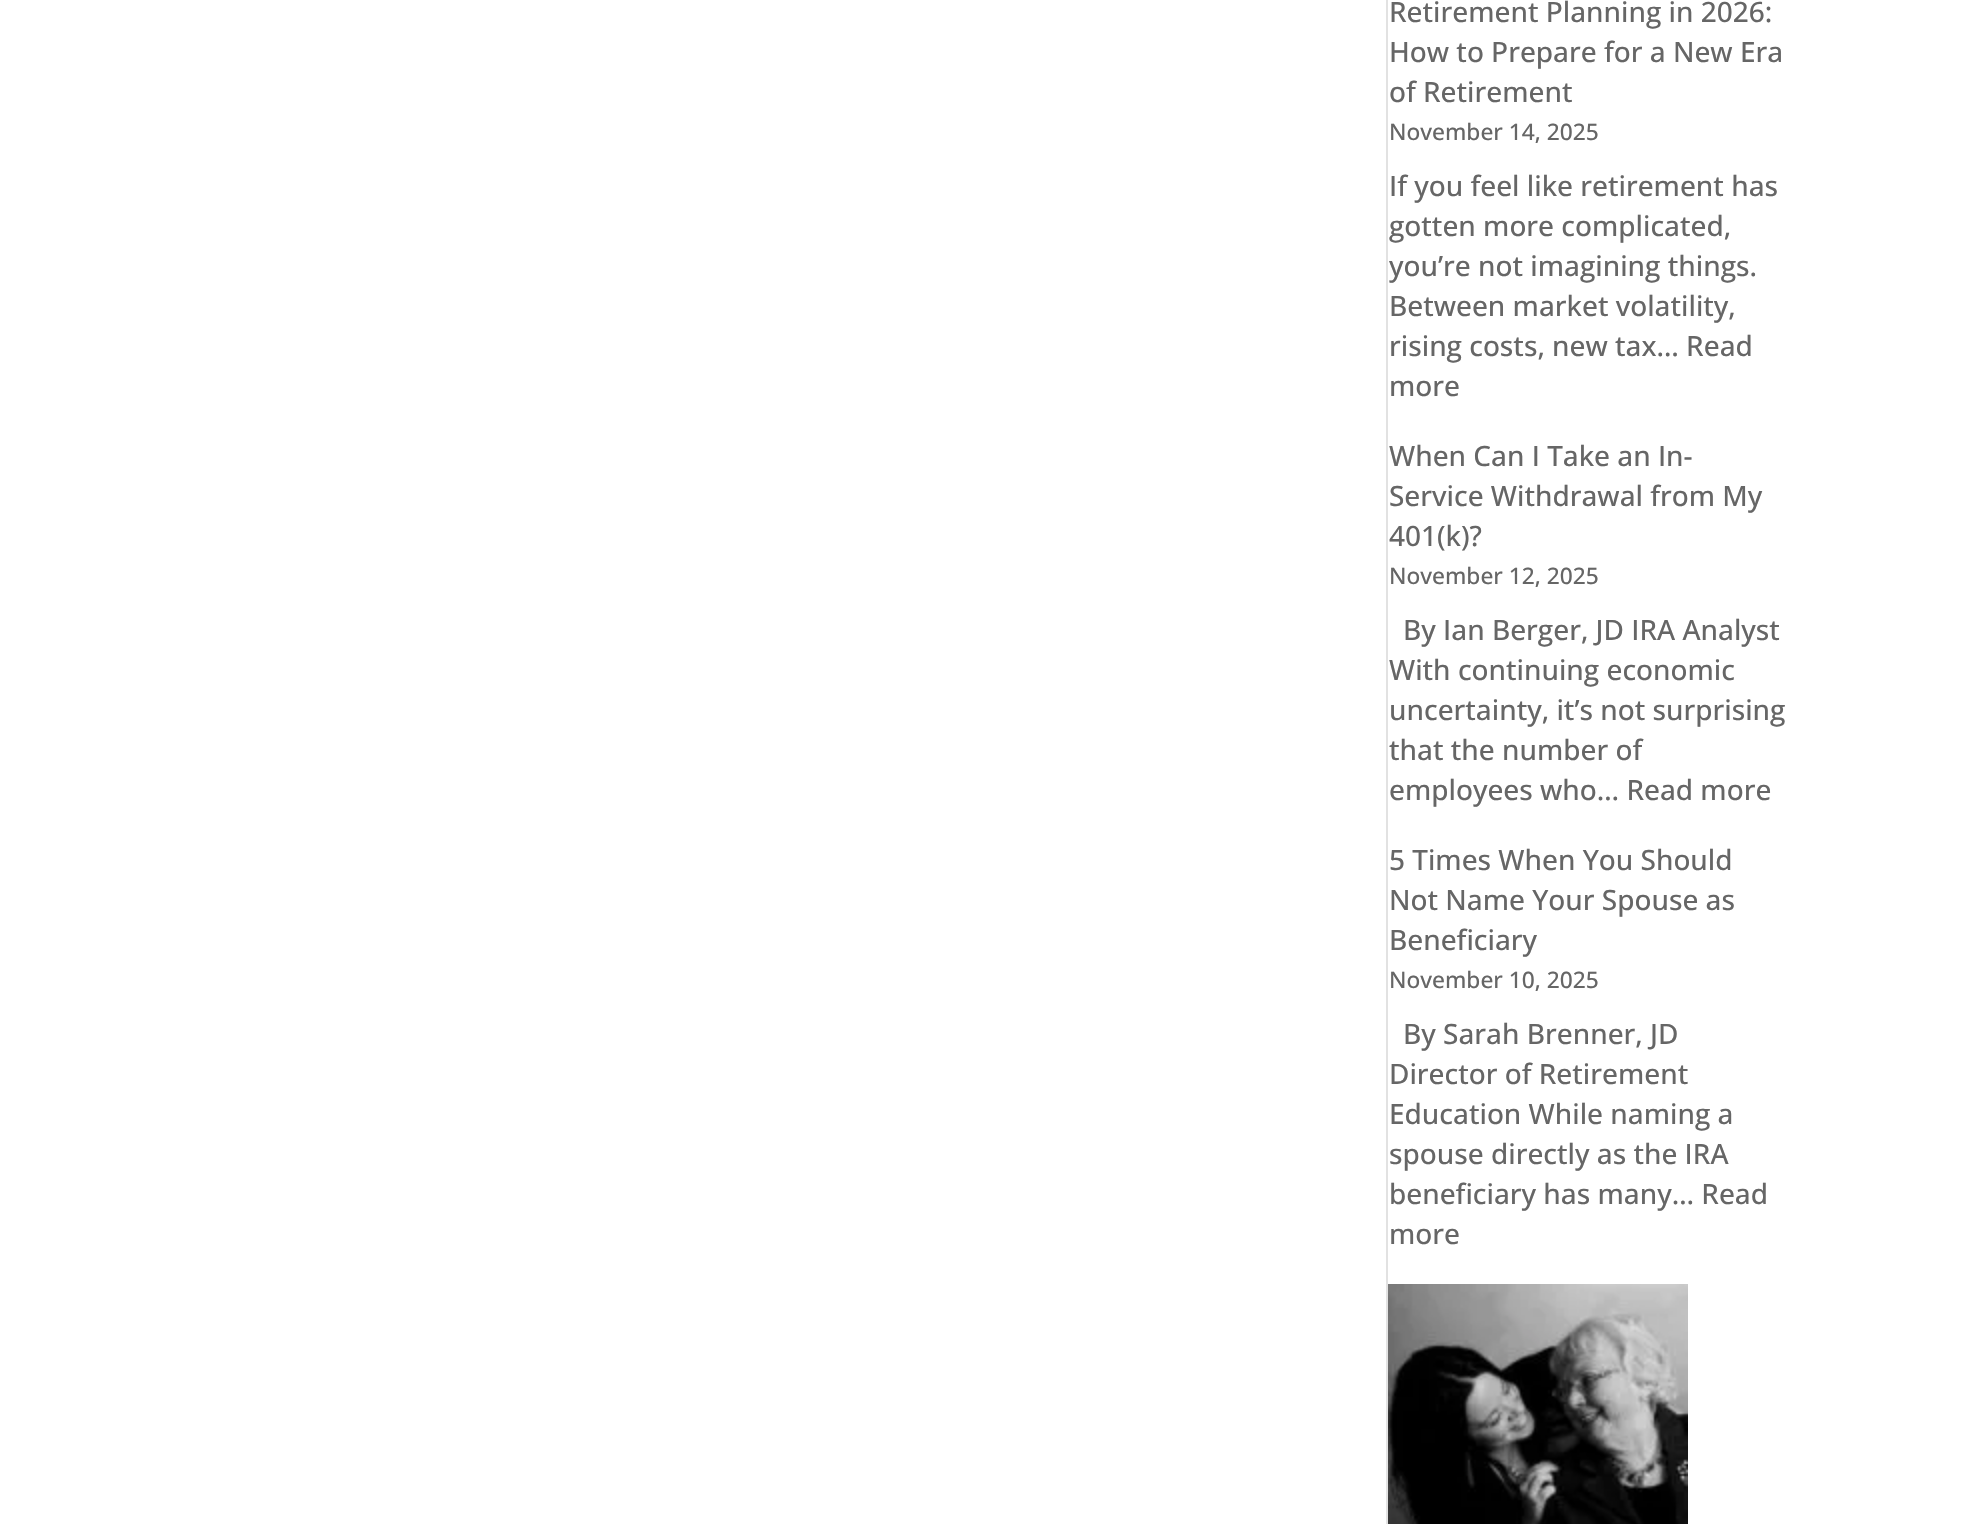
static SkFont makeFont(const char* family, int weight, float size, bool italic = false) {
  SkFontStyle style(weight, SkFontStyle::kNormal_Width,
    italic ? SkFontStyle::kItalic_Slant : SkFontStyle::kUpright_Slant);
  SkFont result(fontMgr->matchFamilyStyle(family, style), size);
  result.setSubpixel(true);
  return result;
}

static void text(SkCanvas* c, const char* s, float x, float y, const SkFont& font, SkColor color) {
  SkPaint ink(SkColor4f::FromColor(color));
  ink.setAntiAlias(true);
  c->drawString(s, x, y, font, ink);
}

static void box(SkCanvas* c, float l, float t, float r, float b, SkColor color) {
  SkPaint ink(SkColor4f::FromColor(color));
  ink.setAntiAlias(true);
  c->drawRect(SkRect::MakeLTRB(l, t, r, b), ink);
}

static void picture(SkCanvas* c, const char* path, float l, float t, float r, float b) {
  auto image = SkImages::DeferredFromEncodedData(SkData::MakeFromFileName(path));
  c->drawImageRect(image, SkRect::MakeLTRB(l, t, r, b), SkSamplingOptions());
}

void draw(SkCanvas* c) {
  SkPaint paint;
  paint.setAntiAlias(true);
  c->clear(0xffffffff);
  box(c, 1386, 0, 1388, 1524, 0xffe2e2e2);
  SkFont face1 = makeFont("Open Sans", 500, 28);
  text(c, "Retirement Planning in 2026:", 1389, 22, face1, 0xff666666);
  text(c, "How to Prepare for a New Era", 1389, 62, face1, 0xff666666);
  text(c, "of Retirement", 1389, 102, face1, 0xff666666);
  SkFont face2 = makeFont("Open Sans", 500, 22.75f);
  text(c, "November 14, 2025", 1389, 140, face2, 0xff666666);
  text(c, "If you feel like retirement has", 1389, 196, face1, 0xff666666);
  text(c, "gotten more complicated,", 1389, 236, face1, 0xff666666);
  text(c, "you’re not imagining things.", 1389, 276, face1, 0xff666666);
  text(c, "Between market volatility,", 1389, 316, face1, 0xff666666);
  text(c, "rising costs, new tax… Read", 1389, 356, face1, 0xff666666);
  text(c, "more", 1389, 396, face1, 0xff666666);
  text(c, "When Can I Take an In-", 1389, 466, face1, 0xff666666);
  text(c, "Service Withdrawal from My", 1389, 506, face1, 0xff666666);
  text(c, "401(k)?", 1389, 546, face1, 0xff666666);
  text(c, "November 12, 2025", 1389, 584, face2, 0xff666666);
  text(c, "By Ian Berger, JD IRA Analyst", 1403, 640, face1, 0xff666666);
  text(c, "With continuing economic", 1389, 680, face1, 0xff666666);
  text(c, "uncertainty, it’s not surprising", 1389, 720, face1, 0xff666666);
  text(c, "that the number of", 1389, 760, face1, 0xff666666);
  text(c, "employees who… Read more", 1389, 800, face1, 0xff666666);
  text(c, "5 Times When You Should", 1389, 870, face1, 0xff666666);
  text(c, "Not Name Your Spouse as", 1389, 910, face1, 0xff666666);
  text(c, "Beneficiary", 1389, 950, face1, 0xff666666);
  text(c, "November 10, 2025", 1389, 988, face2, 0xff666666);
  text(c, "By Sarah Brenner, JD", 1403, 1044, face1, 0xff666666);
  text(c, "Director of Retirement", 1389, 1084, face1, 0xff666666);
  text(c, "Education While naming a", 1389, 1124, face1, 0xff666666);
  text(c, "spouse directly as the IRA", 1389, 1164, face1, 0xff666666);
  text(c, "beneficiary has many… Read", 1389, 1204, face1, 0xff666666);
  text(c, "more", 1389, 1244, face1, 0xff666666);
  picture(c, "img_01.png", 1388, 1284, 1688, 1524);
}
